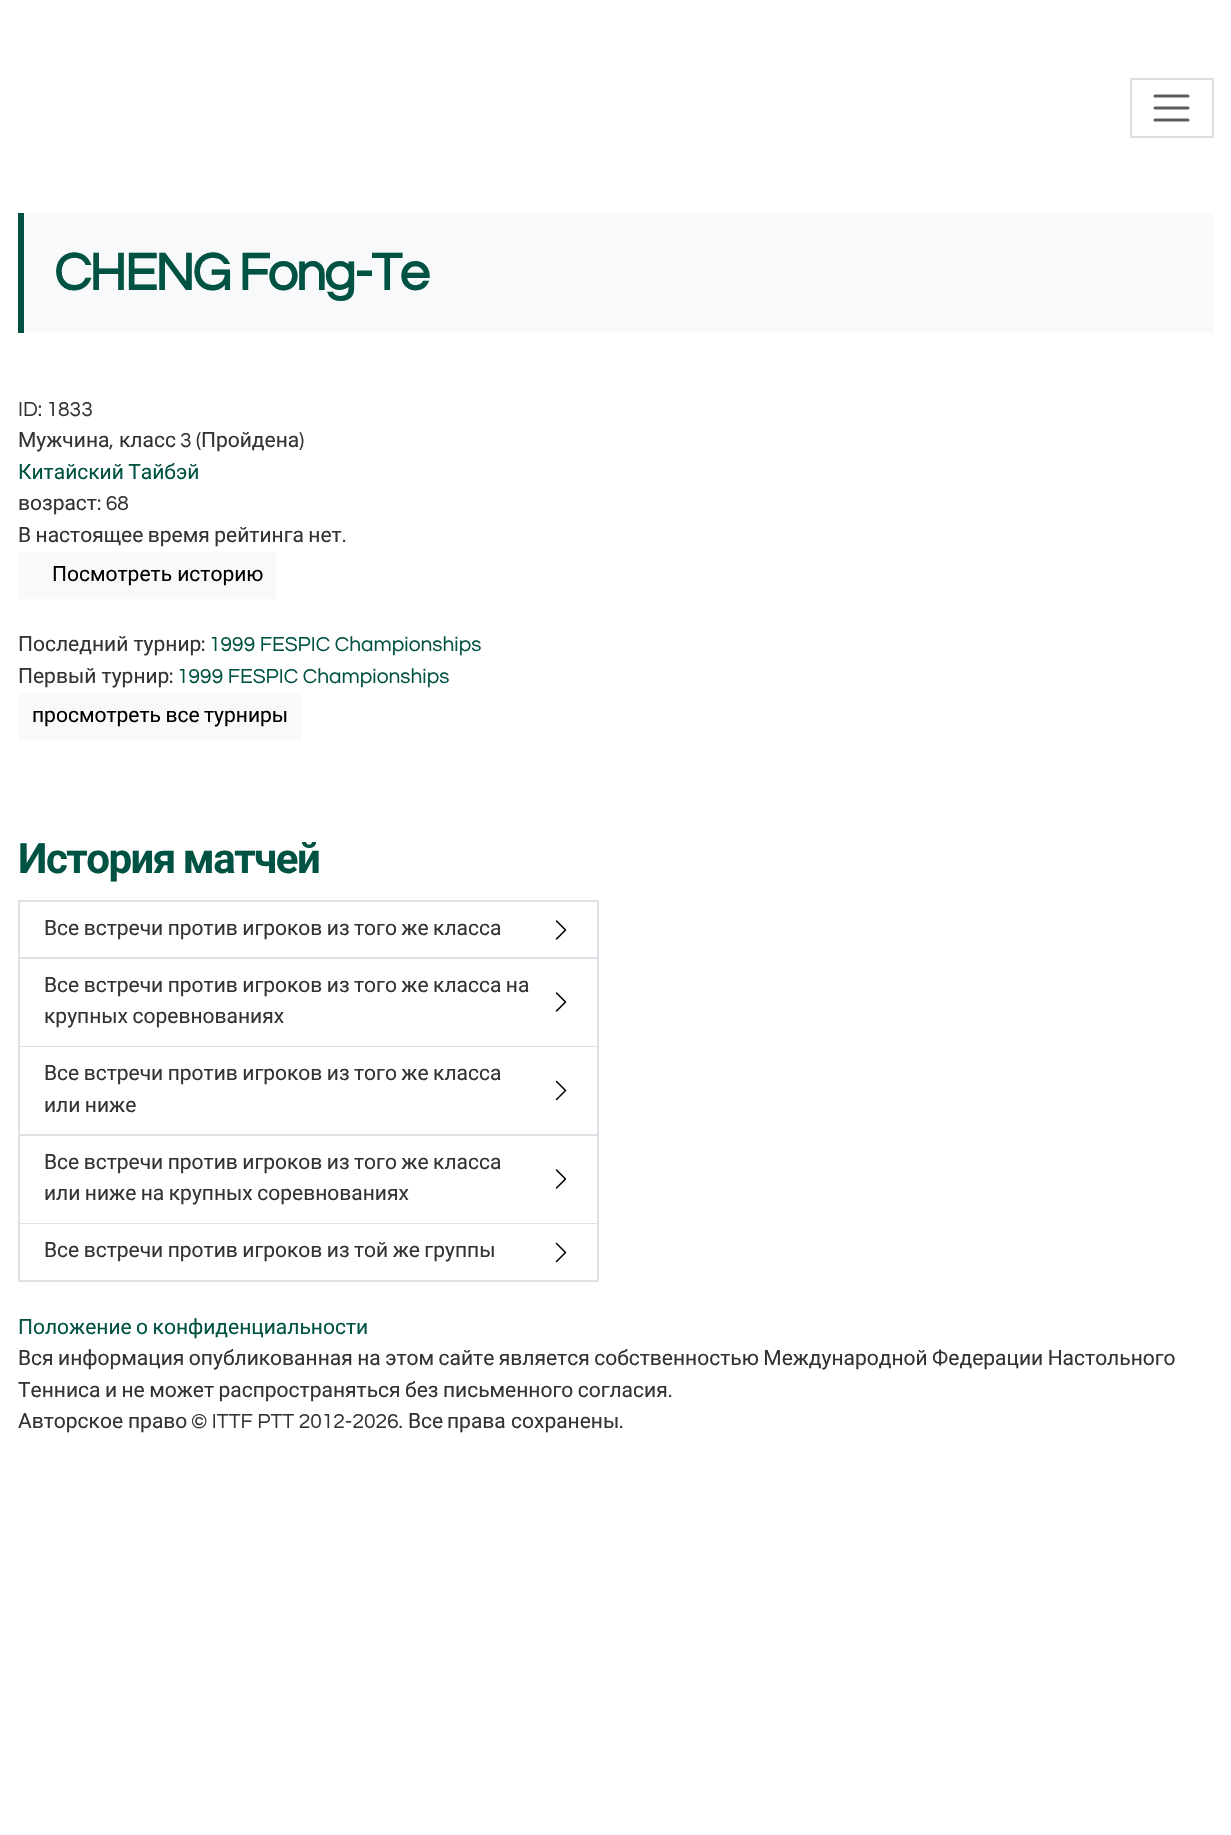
static SkFont makeFont(const char* family, int weight, float size, bool italic = false) {
  SkFontStyle style(weight, SkFontStyle::kNormal_Width,
    italic ? SkFontStyle::kItalic_Slant : SkFontStyle::kUpright_Slant);
  SkFont result(fontMgr->matchFamilyStyle(family, style), size);
  result.setSubpixel(true);
  return result;
}

static void text(SkCanvas* c, const char* s, float x, float y, const SkFont& font, SkColor color) {
  SkPaint ink(SkColor4f::FromColor(color));
  ink.setAntiAlias(true);
  c->drawString(s, x, y, font, ink);
}

static void spacedText(SkCanvas* c, const char* s, float x, float y, const SkFont& font, const SkPaint& ink, float letter, float word) {
  std::vector<SkGlyphID> glyphs(font.countText(s, strlen(s), SkTextEncoding::kUTF8));
  std::vector<float> xs(glyphs.size());
  font.textToGlyphs(s, strlen(s), SkTextEncoding::kUTF8, glyphs);
  font.getXPos(glyphs, xs, x);
  float extra = 0;
  for (size_t i = 0; i < glyphs.size(); i++) {
    xs[i] += extra;
    extra += letter + word * (glyphs[i] == font.unicharToGlyph(' '));
  }
  c->drawTextBlob(SkTextBlob::MakeFromPosHGlyphs(glyphs, xs, y, font), 0, 0, ink);
}

static void box(SkCanvas* c, float l, float t, float r, float b, SkColor color) {
  SkPaint ink(SkColor4f::FromColor(color));
  ink.setAntiAlias(true);
  c->drawRect(SkRect::MakeLTRB(l, t, r, b), ink);
}

static void picture(SkCanvas* c, const char* path, float l, float t, float r, float b) {
  auto image = SkImages::DeferredFromEncodedData(SkData::MakeFromFileName(path));
  c->drawImageRect(image, SkRect::MakeLTRB(l, t, r, b), SkSamplingOptions());
}

void draw(SkCanvas* c) {
  SkPaint paint;
  paint.setAntiAlias(true);
  c->clear(0xffffffff);
  paint.setStyle(SkPaint::kStroke_Style);
  paint.setStrokeWidth(2);
  paint.setColor(0xffdddddd);
  c->drawRect(SkRect::MakeLTRB(1131, 79, 1213, 137), paint);
  paint.setStrokeWidth(3);
  paint.setStrokeCap(SkPaint::kRound_Cap);
  paint.setColor(0xff595c5f);
  c->drawPath(SkPathBuilder().moveTo(1155, 96).lineTo(1188, 96).moveTo(1155, 108).lineTo(1188, 108).moveTo(1155, 120).lineTo(1188, 120).detach(), paint);
  box(c, 24, 213, 1214, 333, 0xfff8f9fa);
  box(c, 18, 213, 24, 333, 0xff005043);
  SkFont face1 = makeFont("Questrial", 700, 54);
  paint.setStyle(SkPaint::kFill_Style);
  paint.setColor(0xff005243);
  spacedText(c, "CHENG Fong-Te", 54, 290, face1, paint, -2.25f, 0);
  SkFont face2 = makeFont("Questrial", 400, 21);
  text(c, "ID: 1833", 18, 416, face2, 0xff333333);
  SkFont face3 = makeFont("Roboto", 400, 21);
  text(c, "Мужчина", 18, 447, face3, 0xff333333);
  text(c, ",", 109, 447, face2, 0xff333333);
  text(c, "класс", 119, 447, face3, 0xff333333);
  text(c, "3 (", 180, 447, face2, 0xff333333);
  text(c, "Пройдена", 201, 447, face3, 0xff333333);
  text(c, ")", 299, 447, face2, 0xff333333);
  spacedText(c, "Китайский Тайбэй", 18, 479, face3, paint, 0, -0.75f);
  text(c, "возраст", 18, 510, face3, 0xff333333);
  text(c, ": 68", 97, 510, face2, 0xff333333);
  paint.setColor(0xff333333);
  spacedText(c, "В настоящее время рейтинга нет", 18, 542, face3, paint, 0, -0.75f);
  text(c, ".", 342, 542, face2, 0xff333333);
  box(c, 18, 552, 276, 599, 0xfff8f9fa);
  text(c, "Посмотреть историю", 52, 581, face3, 0xff000000);
  text(c, "Последний турнир", 18, 651, face3, 0xff333333);
  text(c, ":", 201, 651, face2, 0xff333333);
  text(c, "1999 FESPIC Championships", 209, 651, face2, 0xff005243);
  text(c, "Первый турнир", 18, 683, face3, 0xff333333);
  text(c, ":", 169, 683, face2, 0xff333333);
  text(c, "1999 FESPIC Championships", 177, 683, face2, 0xff005243);
  box(c, 18, 693, 302, 740, 0xfff8f9fa);
  paint.setColor(0xff000000);
  spacedText(c, "просмотреть все турниры", 32, 722, face3, paint, 0, -0.75f);
  SkFont face4 = makeFont("Roboto", 700, 42);
  paint.setColor(0xff005243);
  spacedText(c, "История матчей", 18, 873, face4, paint, -1.5f, -1);
  paint.setStyle(SkPaint::kStroke_Style);
  paint.setStrokeWidth(2);
  paint.setStrokeCap(SkPaint::kButt_Cap);
  paint.setColor(0xffdee2e6);
  c->drawRect(SkRect::MakeLTRB(19, 901, 598, 958), paint);
  paint.setStyle(SkPaint::kFill_Style);
  paint.setColor(0xff333333);
  spacedText(c, "Все встречи против игроков из того же класса", 44, 935, face3, paint, 0, -0.75f);
  picture(c, "img_01.png", 555, 920, 567, 940);
  box(c, 597, 959, 599, 1281, 0xffdee2e6);
  box(c, 18, 1046, 599, 1047, 0xffdee2e6);
  box(c, 18, 959, 20, 1047, 0xffdee2e6);
  spacedText(c, "Все встречи против игроков из того же класса на", 44, 992, face3, paint, 0, -0.75f);
  picture(c, "img_01.png", 555, 992, 567, 1012);
  spacedText(c, "крупных соревнованиях", 44, 1023, face3, paint, 0, -0.75f);
  box(c, 18, 1134, 599, 1136, 0xffdee2e6);
  box(c, 18, 1047, 20, 1136, 0xffdee2e6);
  spacedText(c, "Все встречи против игроков из того же класса", 44, 1080, face3, paint, 0, -0.75f);
  picture(c, "img_02.png", 555, 1080, 567, 1101);
  spacedText(c, "или ниже", 44, 1112, face3, paint, 0, -0.75f);
  box(c, 18, 1223, 599, 1224, 0xffdee2e6);
  box(c, 18, 1136, 20, 1224, 0xffdee2e6);
  spacedText(c, "Все встречи против игроков из того же класса", 44, 1169, face3, paint, 0, -0.75f);
  picture(c, "img_01.png", 555, 1169, 567, 1189);
  spacedText(c, "или ниже на крупных соревнованиях", 44, 1200, face3, paint, 0, -0.75f);
  box(c, 18, 1280, 599, 1282, 0xffdee2e6);
  box(c, 18, 1224, 20, 1281, 0xffdee2e6);
  spacedText(c, "Все встречи против игроков из той же группы", 44, 1257, face3, paint, 0, -0.75f);
  picture(c, "img_02.png", 555, 1242, 567, 1263);
  paint.setColor(0xff005243);
  spacedText(c, "Положение о конфиденциальности", 18, 1334, face3, paint, 0, -0.75f);
  paint.setColor(0xff333333);
  spacedText(c, "Вся информация опубликованная на этом сайте является собственностью Международной Федерации Настольного", 18, 1365, face3, paint, 0, -0.75f);
  spacedText(c, "Тенниса и не может распространяться без письменного согласия", 18, 1397, face3, paint, 0, -0.75f);
  text(c, ".", 668, 1397, face2, 0xff333333);
  text(c, "Авторское", 18, 1428, face3, 0xff333333);
  text(c, "право", 128, 1428, face3, 0xff333333);
  text(c, "© ITTF PTT 2012-2026.", 191, 1428, face2, 0xff333333);
  text(c, "Все", 408, 1428, face3, 0xff333333);
  text(c, "права", 447, 1428, face3, 0xff333333);
  text(c, "сохранены", 511, 1428, face3, 0xff333333);
  text(c, ".", 619, 1428, face2, 0xff333333);
}
